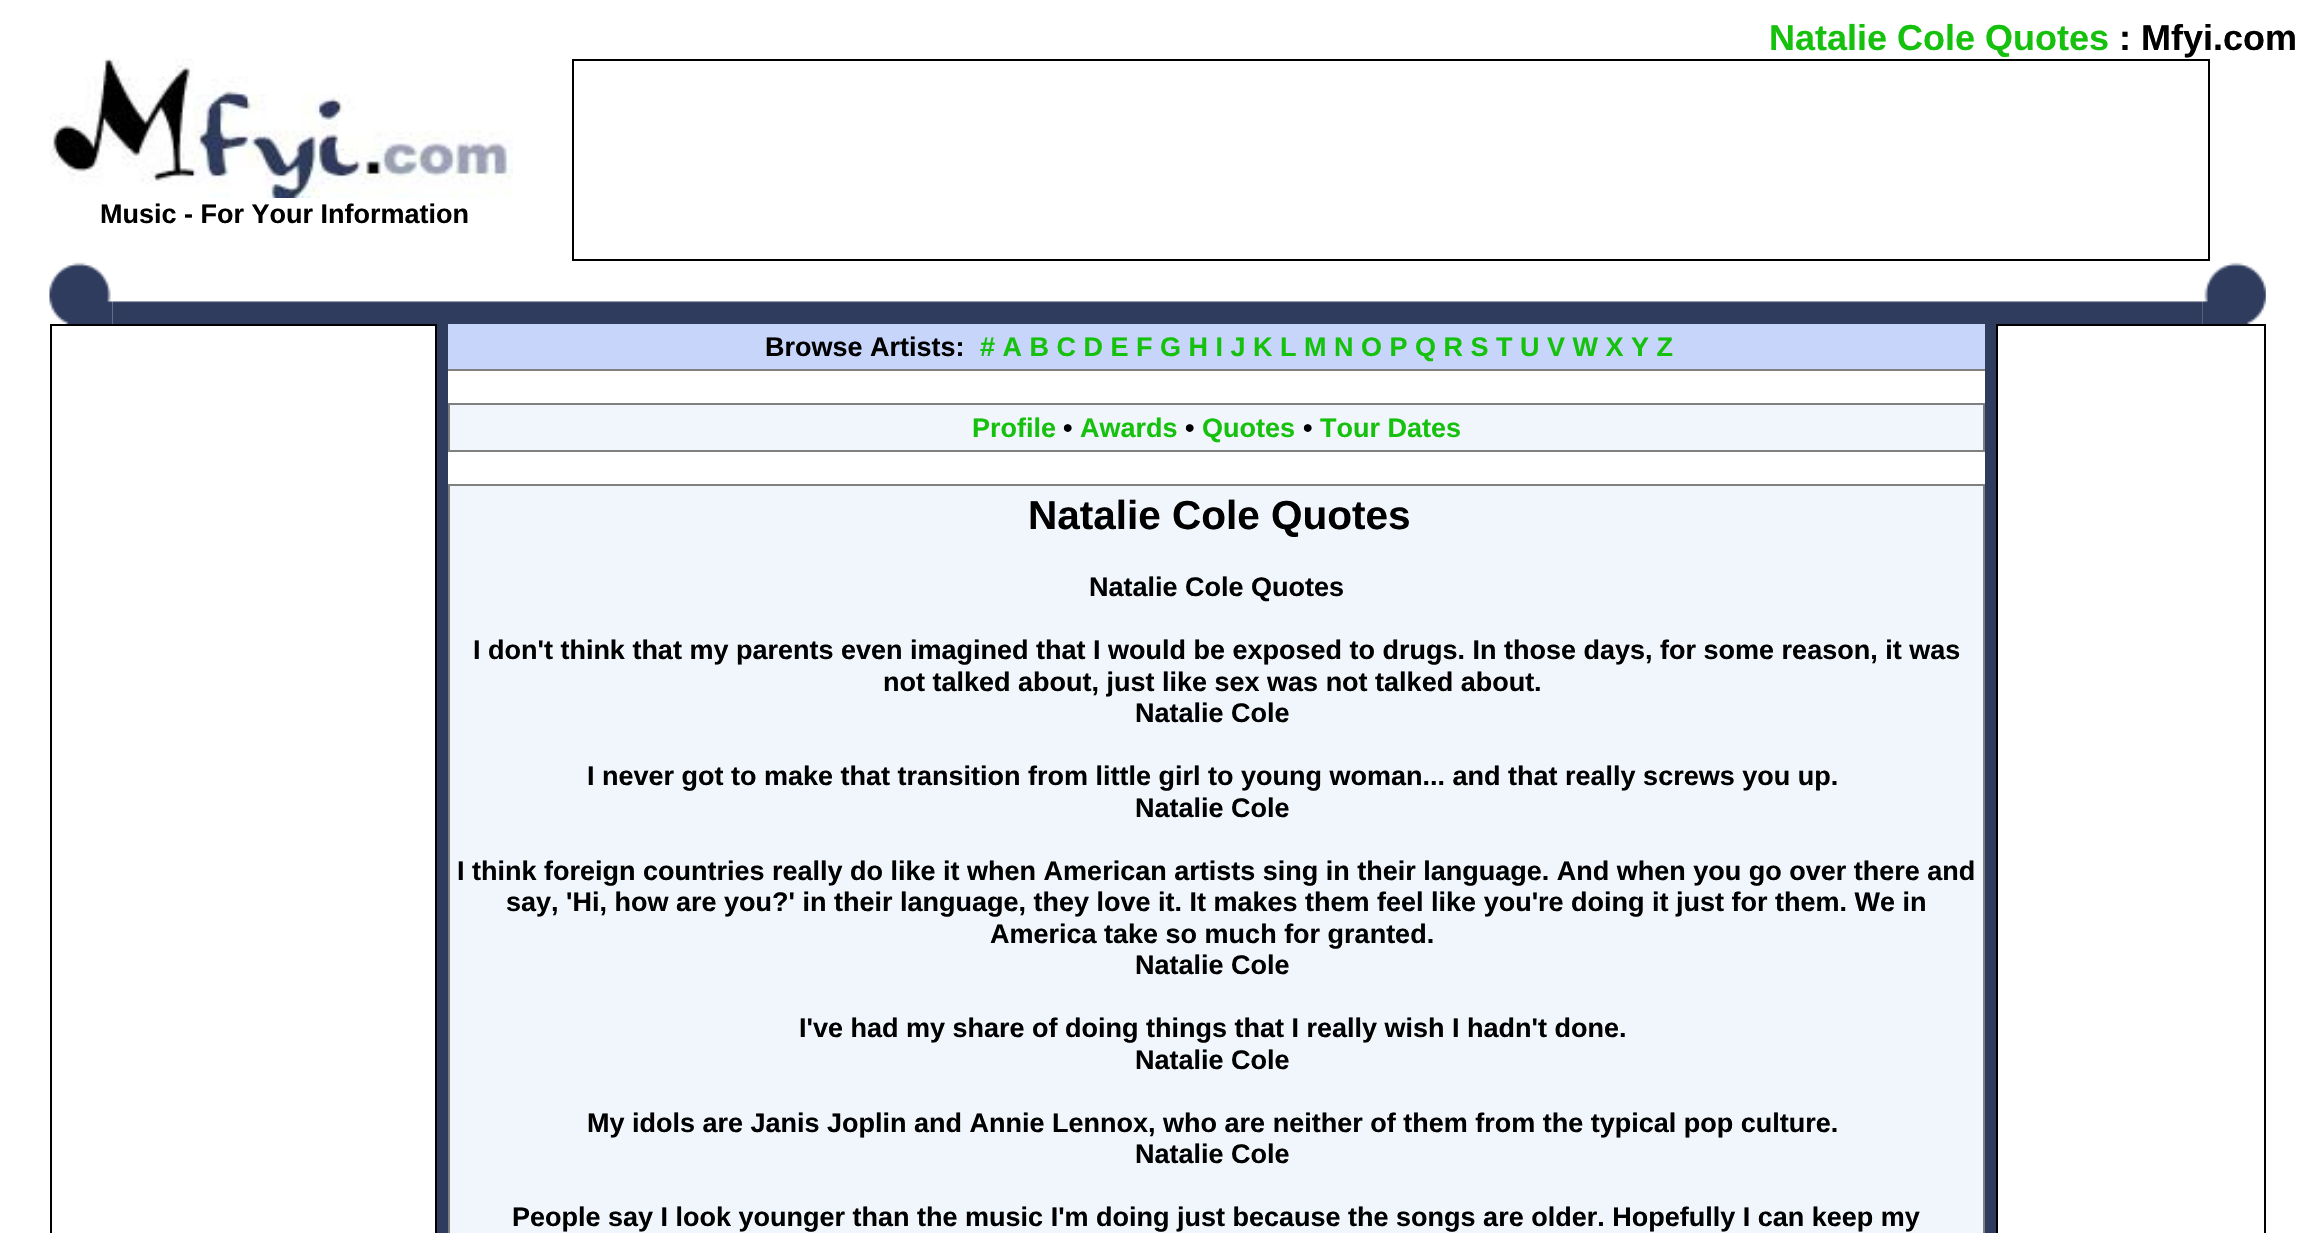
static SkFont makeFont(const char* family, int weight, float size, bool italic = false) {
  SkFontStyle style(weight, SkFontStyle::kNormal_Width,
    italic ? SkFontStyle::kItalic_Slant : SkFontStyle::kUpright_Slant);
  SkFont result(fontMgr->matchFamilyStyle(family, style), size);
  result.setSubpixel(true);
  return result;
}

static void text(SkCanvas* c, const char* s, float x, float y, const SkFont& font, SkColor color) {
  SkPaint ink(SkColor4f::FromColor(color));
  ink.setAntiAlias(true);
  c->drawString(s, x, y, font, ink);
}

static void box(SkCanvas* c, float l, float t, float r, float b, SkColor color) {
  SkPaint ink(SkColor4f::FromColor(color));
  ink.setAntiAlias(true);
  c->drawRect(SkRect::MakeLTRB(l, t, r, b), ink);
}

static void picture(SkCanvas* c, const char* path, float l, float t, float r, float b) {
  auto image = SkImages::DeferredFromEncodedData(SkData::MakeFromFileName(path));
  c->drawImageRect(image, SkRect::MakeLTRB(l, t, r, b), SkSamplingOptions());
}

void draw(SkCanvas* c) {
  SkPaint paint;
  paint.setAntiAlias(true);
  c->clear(0xffffffff);
  SkFont face1 = makeFont("Liberation Sans", 700, 36);
  text(c, "Natalie Cole Quotes", 1769, 50, face1, 0xff15c10c);
  text(c, ": Mfyi.com", 2119, 50, face1, 0xff000000);
  picture(c, "img_01.png", 49, 58, 513, 198);
  SkFont face2 = makeFont("Liberation Sans", 700, 27);
  text(c, "Music - For Your Information", 100, 223, face2, 0xff000000);
  paint.setStyle(SkPaint::kStroke_Style);
  paint.setStrokeWidth(2);
  paint.setColor(0xff000000);
  c->drawRect(SkRect::MakeLTRB(573, 60, 2209, 260), paint);
  picture(c, "img_03.png", 112, 301, 2203, 324);
  picture(c, "img_02.png", 49, 262, 113, 324);
  picture(c, "img_04.png", 2202, 262, 2266, 324);
  c->drawRect(SkRect::MakeLTRB(51, 325, 436, 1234), paint);
  box(c, 437, 324, 448, 1233, 0xff2f3c5e);
  box(c, 448, 324, 1985, 369, 0xffc7d5fa);
  box(c, 448, 369, 1985, 371, 0xff808080);
  text(c, "Browse Artists:", 765, 356, face2, 0xff000000);
  text(c, "# A B C D E F G H I J K L M N O P Q R S T U V W X Y Z", 980, 356, face2, 0xff15c10c);
  paint.setStyle(SkPaint::kFill_Style);
  paint.setColor(0xfff0f6fc);
  c->drawRect(SkRect::MakeLTRB(449, 404, 1984, 451), paint);
  paint.setStyle(SkPaint::kStroke_Style);
  paint.setColor(0xff808080);
  c->drawRect(SkRect::MakeLTRB(449, 404, 1984, 451), paint);
  text(c, "Profile", 972, 437, face2, 0xff15c10c);
  text(c, "•", 1063, 437, face2, 0xff000000);
  text(c, "Awards", 1080, 437, face2, 0xff15c10c);
  text(c, "•", 1185, 437, face2, 0xff000000);
  text(c, "Quotes", 1202, 437, face2, 0xff15c10c);
  text(c, "•", 1303, 437, face2, 0xff000000);
  text(c, "Tour Dates", 1320, 437, face2, 0xff15c10c);
  paint.setStyle(SkPaint::kFill_Style);
  paint.setColor(0xfff0f6fc);
  c->drawRect(SkRect::MakeLTRB(449, 485, 1984, 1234), paint);
  paint.setStyle(SkPaint::kStroke_Style);
  paint.setColor(0xff808080);
  c->drawRect(SkRect::MakeLTRB(449, 485, 1984, 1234), paint);
  SkFont face3 = makeFont("Liberation Sans", 700, 40.5f);
  text(c, "Natalie Cole Quotes", 1028, 529, face3, 0xff000000);
  text(c, "Natalie Cole Quotes", 1089, 596, face2, 0xff000000);
  text(c, "I don't think that my parents even imagined that I would be exposed to drugs. In those days, for some reason, it was", 473, 659, face2, 0xff000000);
  text(c, "not talked about, just like sex was not talked about.", 883, 691, face2, 0xff000000);
  text(c, "Natalie Cole", 1135, 722, face2, 0xff000000);
  text(c, "I never got to make that transition from little girl to young woman... and that really screws you up.", 587, 785, face2, 0xff000000);
  text(c, "Natalie Cole", 1135, 817, face2, 0xff000000);
  text(c, "I think foreign countries really do like it when American artists sing in their language. And when you go over there and", 457, 880, face2, 0xff000000);
  text(c, "say, 'Hi, how are you?' in their language, they love it. It makes them feel like you're doing it just for them. We in", 506, 911, face2, 0xff000000);
  text(c, "America take so much for granted.", 990, 943, face2, 0xff000000);
  text(c, "Natalie Cole", 1135, 974, face2, 0xff000000);
  text(c, "I've had my share of doing things that I really wish I hadn't done.", 799, 1037, face2, 0xff000000);
  text(c, "Natalie Cole", 1135, 1069, face2, 0xff000000);
  text(c, "My idols are Janis Joplin and Annie Lennox, who are neither of them from the typical pop culture.", 587, 1132, face2, 0xff000000);
  text(c, "Natalie Cole", 1135, 1163, face2, 0xff000000);
  text(c, "People say I look younger than the music I'm doing just because the songs are older. Hopefully I can keep my", 512, 1226, face2, 0xff000000);
  box(c, 1985, 324, 1996, 1233, 0xff2f3c5e);
  paint.setColor(0xff000000);
  c->drawRect(SkRect::MakeLTRB(1997, 325, 2265, 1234), paint);
}
